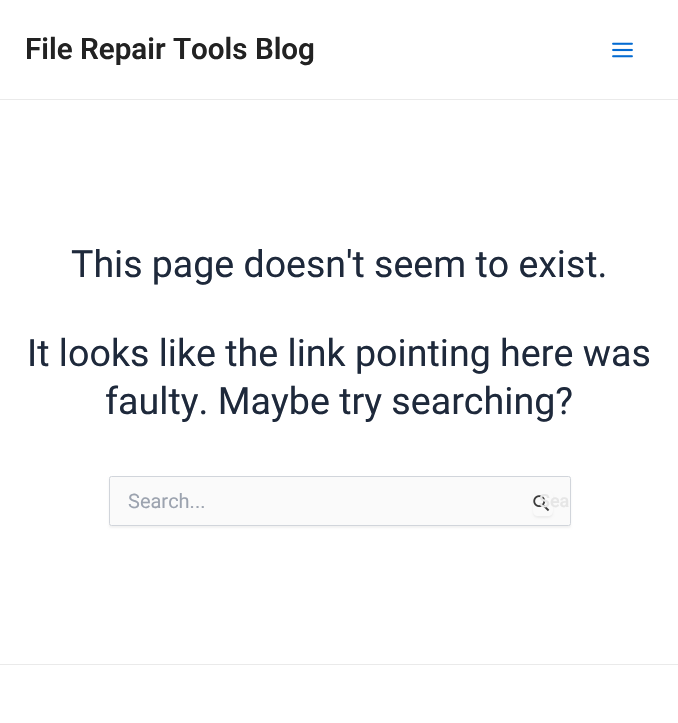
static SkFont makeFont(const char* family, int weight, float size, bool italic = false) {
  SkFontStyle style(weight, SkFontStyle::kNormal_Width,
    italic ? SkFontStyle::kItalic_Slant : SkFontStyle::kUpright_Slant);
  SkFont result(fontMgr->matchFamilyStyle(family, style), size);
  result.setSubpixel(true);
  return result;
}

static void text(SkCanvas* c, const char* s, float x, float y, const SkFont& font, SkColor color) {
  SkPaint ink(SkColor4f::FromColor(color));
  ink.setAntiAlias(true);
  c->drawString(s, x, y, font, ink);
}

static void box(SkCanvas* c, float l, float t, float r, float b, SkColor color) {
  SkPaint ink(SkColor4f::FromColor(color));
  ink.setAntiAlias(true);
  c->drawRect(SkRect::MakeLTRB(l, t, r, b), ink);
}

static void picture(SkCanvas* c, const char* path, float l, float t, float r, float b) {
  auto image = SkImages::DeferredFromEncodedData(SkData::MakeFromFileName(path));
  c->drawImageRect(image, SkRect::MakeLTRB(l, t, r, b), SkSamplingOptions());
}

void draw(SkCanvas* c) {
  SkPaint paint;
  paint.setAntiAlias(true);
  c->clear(0xffffffff);
  box(c, 0, 99, 678, 100, 0xffeaeaea);
  SkFont face1 = makeFont("Roboto", 600, 29.6f);
  text(c, "File Repair Tools Blog", 25, 59, face1, 0xff222222);
  picture(c, "img_01.png", 612, 42, 633, 58);
  SkFont face2 = makeFont("Roboto", 400, 37.5f);
  text(c, "This page doesn't seem to exist.", 71, 277, face2, 0xff1e293b);
  SkFont face3 = makeFont("Roboto", 400, 37.6f);
  text(c, "It looks like the link pointing here was", 27, 366, face3, 0xff1e293b);
  text(c, "faulty. Maybe try searching?", 105, 414, face3, 0xff1e293b);
  paint.setColor(0x0d000000);
  paint.setMaskFilter(SkMaskFilter::MakeBlur(kNormal_SkBlurStyle, 1));
  c->drawRoundRect(SkRect::MakeLTRB(109, 478, 571, 528), 2.5f, 2.5f, paint);
  paint.setMaskFilter(nullptr);
  paint.setColor(0xfffafafa);
  c->drawRoundRect(SkRect::MakeLTRB(109.5f, 476.5f, 570.5f, 525.5f), 2, 2, paint);
  paint.setStyle(SkPaint::kStroke_Style);
  paint.setStrokeWidth(1);
  paint.setColor(0xffd1d5db);
  c->drawRoundRect(SkRect::MakeLTRB(109.5f, 476.5f, 570.5f, 525.5f), 2, 2, paint);
  SkFont face4 = makeFont("Roboto", 400, 20);
  text(c, "Search...", 128, 508, face4, 0xff9ca3af);
  c->save();
  c->clipPath(SkPathBuilder(SkPathFillType::kEvenOdd).moveTo(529, 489).lineTo(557, 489).lineTo(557, 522).lineTo(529, 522).close().moveTo(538, 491).lineTo(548, 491).cubicTo(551, 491, 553, 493, 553, 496).lineTo(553, 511).cubicTo(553, 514, 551, 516, 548, 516).lineTo(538, 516).cubicTo(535, 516, 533, 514, 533, 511).lineTo(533, 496).cubicTo(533, 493, 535, 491, 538, 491).close().detach(), true);
  paint.setStyle(SkPaint::kFill_Style);
  paint.setColor(0x0d000000);
  paint.setMaskFilter(SkMaskFilter::MakeBlur(kNormal_SkBlurStyle, 1));
  c->drawRoundRect(SkRect::MakeLTRB(533, 493, 553, 518), 5, 5, paint);
  paint.setMaskFilter(nullptr);
  c->restore();
  picture(c, "img_02.png", 533, 495, 550, 512);
  SkFont face5 = makeFont("Roboto", 500, 18);
  text(c, "Sea", 539, 507, face5, 0xffe6e6e6);
  box(c, 0, 664, 678, 665, 0xffeaeaea);
}
